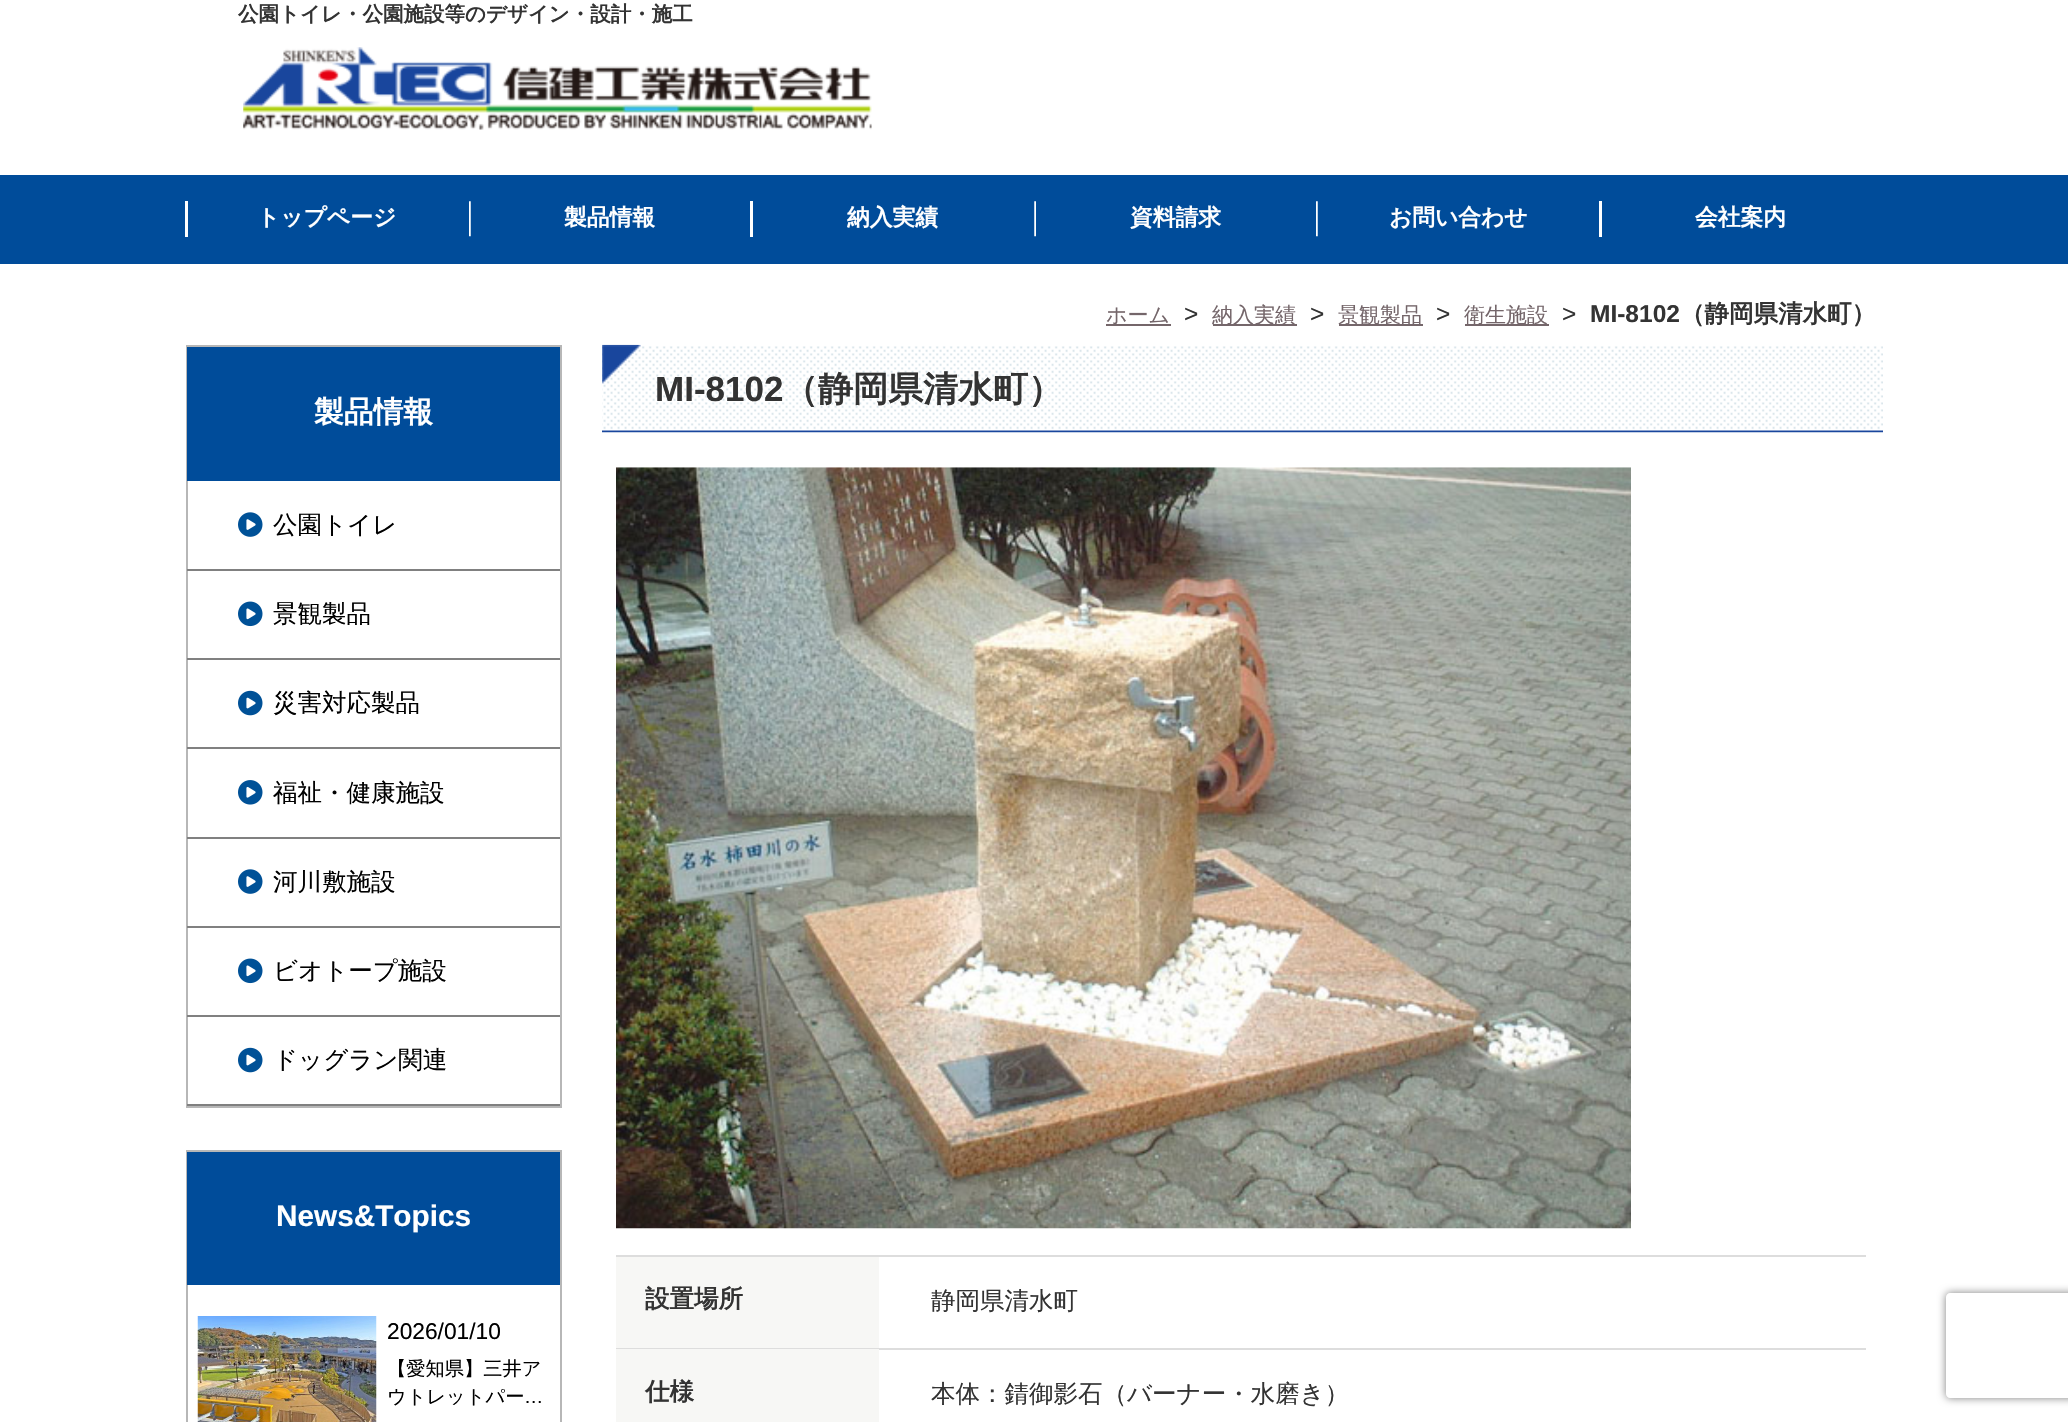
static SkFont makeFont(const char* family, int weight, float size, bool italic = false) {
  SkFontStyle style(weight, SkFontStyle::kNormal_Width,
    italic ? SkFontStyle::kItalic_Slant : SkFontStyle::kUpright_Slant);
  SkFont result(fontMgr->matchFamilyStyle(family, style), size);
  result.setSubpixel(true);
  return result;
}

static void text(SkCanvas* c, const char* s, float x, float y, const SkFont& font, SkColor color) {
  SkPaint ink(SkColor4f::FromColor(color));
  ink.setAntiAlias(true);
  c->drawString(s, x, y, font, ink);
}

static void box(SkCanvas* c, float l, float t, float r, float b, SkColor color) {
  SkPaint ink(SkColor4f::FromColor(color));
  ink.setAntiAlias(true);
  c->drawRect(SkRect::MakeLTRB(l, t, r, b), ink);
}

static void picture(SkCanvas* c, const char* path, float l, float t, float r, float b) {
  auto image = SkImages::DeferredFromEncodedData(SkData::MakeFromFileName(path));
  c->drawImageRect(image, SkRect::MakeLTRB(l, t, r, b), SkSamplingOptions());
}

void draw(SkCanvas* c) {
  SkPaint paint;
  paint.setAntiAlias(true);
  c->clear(0xffffffff);
  SkFont face1 = makeFont("WenQuanYi Zen Hei", 700, 20.5f);
  text(c, "公園トイレ・公園施設等のデザイン・設計・施工", 238, 21, face1, 0xff333333);
  picture(c, "img_01.png", 243, 47, 872, 130);
  box(c, 0, 175, 2068, 264, 0xff004c9a);
  box(c, 185, 201, 188, 237, 0xffffffff);
  SkFont face2 = makeFont("WenQuanYi Zen Hei", 700, 22.75f);
  text(c, "トップページ", 257, 225, face2, 0xffffffff);
  picture(c, "img_02.png", 469, 201, 471, 237);
  text(c, "製品情報", 564, 225, face2, 0xffffffff);
  box(c, 750, 201, 753, 237, 0xffffffff);
  text(c, "納入実績", 847, 225, face2, 0xffffffff);
  picture(c, "img_03.png", 1034, 201, 1036, 237);
  text(c, "資料請求", 1130, 225, face2, 0xffffffff);
  picture(c, "img_02.png", 1316, 201, 1318, 237);
  text(c, "お問い合わせ", 1389, 225, face2, 0xffffffff);
  box(c, 1599, 201, 1602, 237, 0xffffffff);
  text(c, "会社案内", 1695, 225, face2, 0xffffffff);
  box(c, 1106, 324, 1171, 326, 0xff74666a);
  SkFont face3 = makeFont("WenQuanYi Zen Hei", 500, 21);
  text(c, "ホーム", 1106, 322, face3, 0xff74666a);
  SkFont face4 = makeFont("Liberation Sans", 400, 24.5f);
  text(c, ">", 1184, 322, face4, 0xff333333);
  box(c, 1213, 324, 1297, 326, 0xff74666a);
  text(c, "納入実績", 1212, 322, face3, 0xff74666a);
  text(c, ">", 1310, 322, face4, 0xff333333);
  box(c, 1339, 324, 1423, 326, 0xff74666a);
  text(c, "景観製品", 1338, 322, face3, 0xff74666a);
  text(c, ">", 1436, 322, face4, 0xff333333);
  box(c, 1465, 324, 1549, 326, 0xff74666a);
  text(c, "衛生施設", 1464, 322, face3, 0xff74666a);
  text(c, ">", 1562, 322, face4, 0xff333333);
  SkFont face5 = makeFont("Liberation Sans", 700, 24.5f);
  text(c, "MI-8102", 1590, 322, face5, 0xff333333);
  SkFont face6 = makeFont("WenQuanYi Zen Hei", 700, 24.5f);
  text(c, "（静岡県清水町）", 1680, 322, face6, 0xff333333);
  paint.setStyle(SkPaint::kStroke_Style);
  paint.setStrokeWidth(2);
  paint.setColor(0xffb7b7b7);
  c->drawRect(SkRect::MakeLTRB(187, 346, 561, 1107), paint);
  box(c, 187, 347, 560, 481, 0xff004c9a);
  SkFont face7 = makeFont("WenQuanYi Zen Hei", 700, 29.75f);
  text(c, "製品情報", 314, 422, face7, 0xffffffff);
  box(c, 187, 569, 560, 571, 0xff808080);
  picture(c, "img_04.png", 238, 512, 263, 537);
  SkFont face8 = makeFont("WenQuanYi Zen Hei", 500, 24.5f);
  text(c, "公園トイレ", 273, 533, face8, 0xff000000);
  box(c, 187, 658, 560, 660, 0xff808080);
  picture(c, "img_05.png", 238, 601, 263, 627);
  text(c, "景観製品", 273, 622, face8, 0xff000000);
  box(c, 187, 747, 560, 749, 0xff808080);
  picture(c, "img_06.png", 238, 690, 263, 716);
  text(c, "災害対応製品", 273, 711, face8, 0xff000000);
  box(c, 187, 837, 560, 839, 0xff808080);
  picture(c, "img_07.png", 238, 780, 263, 805);
  text(c, "福祉・健康施設", 273, 801, face8, 0xff000000);
  box(c, 187, 926, 560, 928, 0xff808080);
  picture(c, "img_04.png", 238, 869, 263, 894);
  text(c, "河川敷施設", 273, 890, face8, 0xff000000);
  box(c, 187, 1015, 560, 1017, 0xff808080);
  picture(c, "img_05.png", 238, 958, 263, 984);
  text(c, "ビオトープ施設", 273, 979, face8, 0xff000000);
  box(c, 187, 1104, 560, 1106, 0xff808080);
  picture(c, "img_06.png", 238, 1047, 263, 1073);
  text(c, "ドッグラン関連", 273, 1068, face8, 0xff000000);
  c->drawRect(SkRect::MakeLTRB(187, 1151, 561, 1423), paint);
  box(c, 187, 1152, 560, 1285, 0xff004c9a);
  SkFont face9 = makeFont("Liberation Sans", 700, 29.75f);
  text(c, "News&Topics", 276, 1226, face9, 0xffffffff);
  picture(c, "img_08.png", 197, 1316, 377, 1422);
  SkFont face10 = makeFont("Liberation Sans", 400, 22.75f);
  text(c, "2026/01/10", 387, 1339, face10, 0xff000000);
  SkFont face11 = makeFont("WenQuanYi Zen Hei", 500, 19.25f);
  text(c, "【愛知県】三井ア", 387, 1375, face11, 0xff000000);
  text(c, "ウトレットパー", 387, 1403, face11, 0xff000000);
  SkFont face12 = makeFont("Liberation Sans", 400, 19.25f);
  text(c, "…", 524, 1403, face12, 0xff000000);
  picture(c, "img_09.png", 602, 344, 1883, 433);
  SkFont face13 = makeFont("Liberation Sans", 700, 35);
  text(c, "MI-8102", 655, 401, face13, 0xff333333);
  SkFont face14 = makeFont("WenQuanYi Zen Hei", 700, 35);
  text(c, "（静岡県清水町）", 783, 401, face14, 0xff333333);
  picture(c, "img_10.png", 616, 467, 1631, 1229);
  box(c, 616, 1255, 1866, 1257, 0xffdddddd);
  box(c, 616, 1257, 879, 1348, 0xfff7f7f5);
  box(c, 616, 1348, 879, 1349, 0xffdddddd);
  text(c, "設置場所", 645, 1307, face6, 0xff333333);
  box(c, 879, 1348, 1866, 1350, 0xffdddddd);
  text(c, "静岡県清水町", 931, 1309, face8, 0xff333333);
  box(c, 616, 1349, 879, 1422, 0xfff7f7f5);
  text(c, "仕様", 645, 1400, face6, 0xff333333);
  text(c, "本体：錆御影石（バーナー・水磨き）", 931, 1402, face8, 0xff333333);
  c->save();
  c->clipPath(SkPathBuilder(SkPathFillType::kEvenOdd).moveTo(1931, 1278).lineTo(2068, 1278).lineTo(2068, 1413).lineTo(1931, 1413).close().moveTo(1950, 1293).lineTo(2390, 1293).cubicTo(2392, 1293, 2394, 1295, 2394, 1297).lineTo(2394, 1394).cubicTo(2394, 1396, 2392, 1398, 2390, 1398).lineTo(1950, 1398).cubicTo(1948, 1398, 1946, 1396, 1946, 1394).lineTo(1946, 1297).cubicTo(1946, 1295, 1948, 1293, 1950, 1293).close().detach(), true);
  paint.setStyle(SkPaint::kFill_Style);
  paint.setColor(0xff808080);
  paint.setMaskFilter(SkMaskFilter::MakeBlur(kNormal_SkBlurStyle, 4.5f));
  c->drawRoundRect(SkRect::MakeLTRB(1946, 1293, 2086, 1398), 4, 4, paint);
  paint.setMaskFilter(nullptr);
  c->restore();
}
